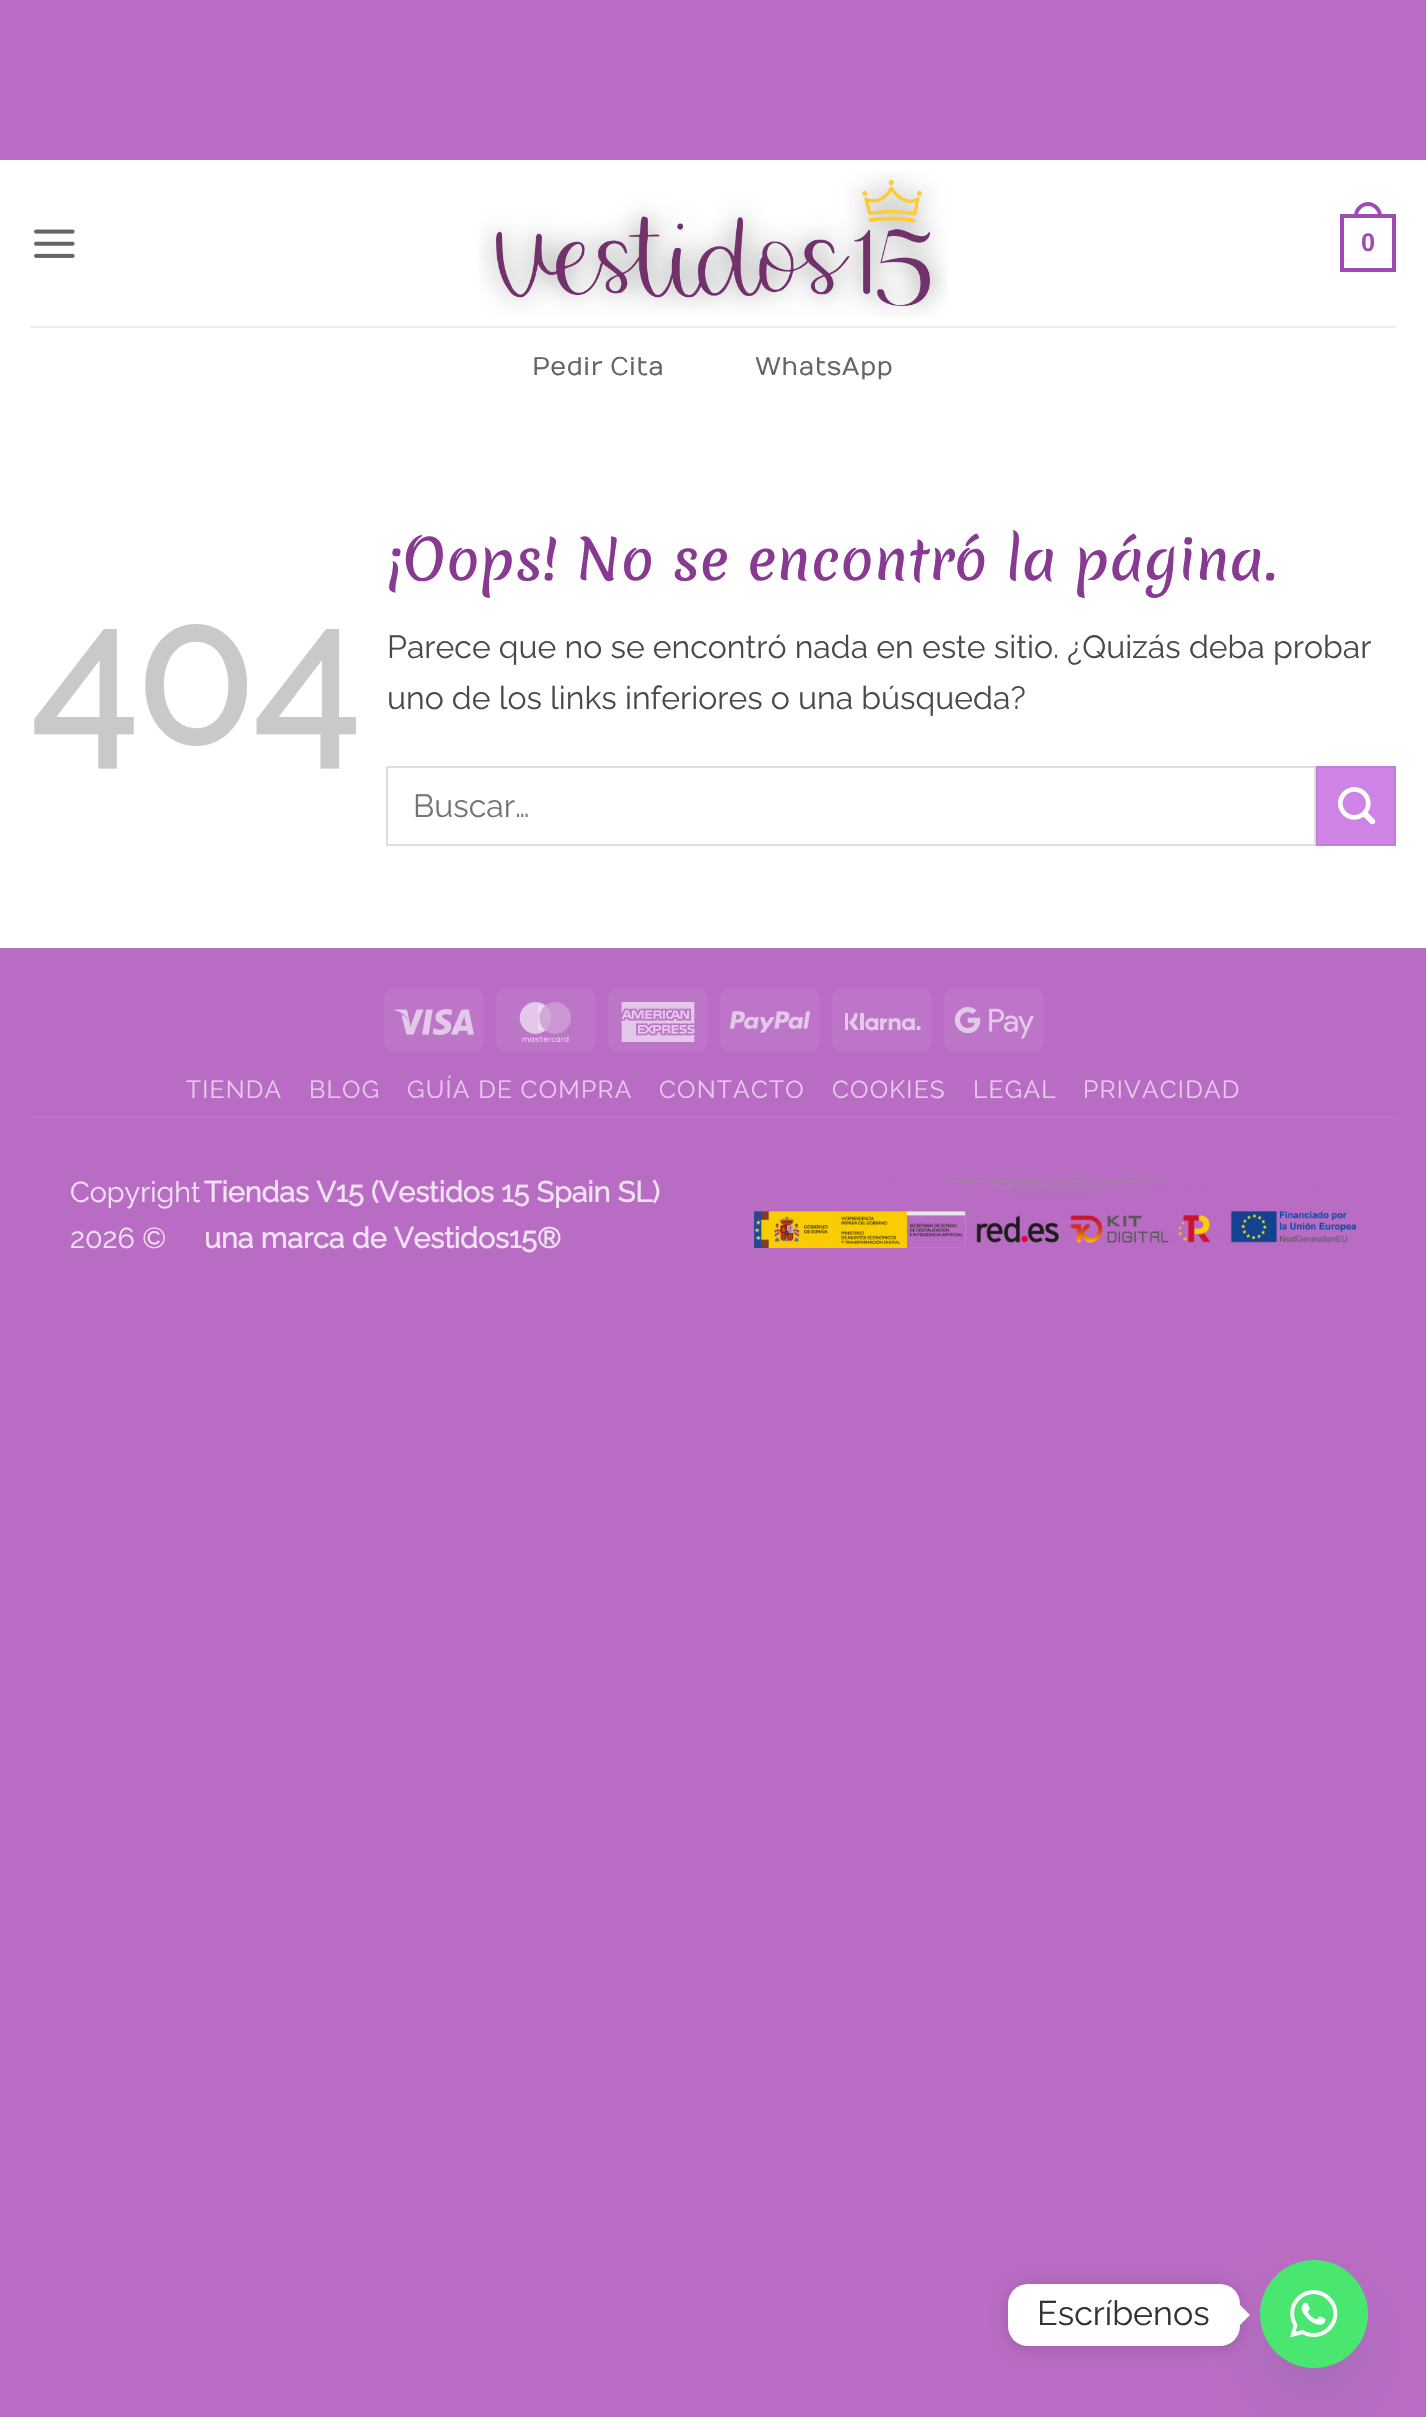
static SkFont makeFont(const char* family, int weight, float size, bool italic = false) {
  SkFontStyle style(weight, SkFontStyle::kNormal_Width,
    italic ? SkFontStyle::kItalic_Slant : SkFontStyle::kUpright_Slant);
  SkFont result(fontMgr->matchFamilyStyle(family, style), size);
  result.setSubpixel(true);
  return result;
}

static void text(SkCanvas* c, const char* s, float x, float y, const SkFont& font, SkColor color) {
  SkPaint ink(SkColor4f::FromColor(color));
  ink.setAntiAlias(true);
  c->drawString(s, x, y, font, ink);
}

static void spacedText(SkCanvas* c, const char* s, float x, float y, const SkFont& font, const SkPaint& ink, float letter, float word) {
  std::vector<SkGlyphID> glyphs(font.countText(s, strlen(s), SkTextEncoding::kUTF8));
  std::vector<float> xs(glyphs.size());
  font.textToGlyphs(s, strlen(s), SkTextEncoding::kUTF8, glyphs);
  font.getXPos(glyphs, xs, x);
  float extra = 0;
  for (size_t i = 0; i < glyphs.size(); i++) {
    xs[i] += extra;
    extra += letter + word * (glyphs[i] == font.unicharToGlyph(' '));
  }
  c->drawTextBlob(SkTextBlob::MakeFromPosHGlyphs(glyphs, xs, y, font), 0, 0, ink);
}

static void box(SkCanvas* c, float l, float t, float r, float b, SkColor color) {
  SkPaint ink(SkColor4f::FromColor(color));
  ink.setAntiAlias(true);
  c->drawRect(SkRect::MakeLTRB(l, t, r, b), ink);
}

static void roundBox(SkCanvas* c, float l, float t, float r, float b, float radius, SkColor color) {
  SkPaint ink(SkColor4f::FromColor(color));
  ink.setAntiAlias(true);
  c->drawRoundRect(SkRect::MakeLTRB(l, t, r, b), radius, radius, ink);
}

static void picture(SkCanvas* c, const char* path, float l, float t, float r, float b) {
  auto image = SkImages::DeferredFromEncodedData(SkData::MakeFromFileName(path));
  c->drawImageRect(image, SkRect::MakeLTRB(l, t, r, b), SkSamplingOptions());
}

void draw(SkCanvas* c) {
  SkPaint paint;
  paint.setAntiAlias(true);
  c->clear(0xffb86cc3);
  box(c, 0, 160, 1426, 948, 0xffffffff);
  picture(c, "img_01.png", 34, 229, 75, 258);
  picture(c, "img_02.png", 479, 172, 948, 317);
  paint.setStyle(SkPaint::kStroke_Style);
  paint.setStrokeWidth(4);
  paint.setColor(0xffa04bb3);
  c->drawRect(SkRect::MakeLTRB(1342, 216, 1394, 270), paint);
  paint.setStyle(SkPaint::kFill_Style);
  c->drawPath(SkPathBuilder(SkPathFillType::kEvenOdd).moveTo(1368, 202).cubicTo(1375.5f, 202, 1382, 208.5f, 1382, 216).lineTo(1382, 218).lineTo(1354, 218).lineTo(1354, 216).cubicTo(1354, 208.5f, 1360.5f, 202, 1368, 202).close().moveTo(1368, 206).cubicTo(1373.5f, 206, 1378, 210.5f, 1378, 216).lineTo(1378, 218).lineTo(1358, 218).lineTo(1358, 216).cubicTo(1358, 210.5f, 1362.5f, 206, 1368, 206).close().detach(), paint);
  SkFont face1 = makeFont("Liberation Sans", 700, 25.5f);
  text(c, "0", 1361, 251, face1, 0xffa04bb3);
  box(c, 30, 326, 1396, 328, 0xffededed);
  SkFont face2 = makeFont("Numans", 400, 25.5f);
  text(c, "Pedir Cita", 532, 375, face2, 0xff656565);
  text(c, "WhatsApp", 755, 375, face2, 0xff656565);
  SkFont face3 = makeFont("Raleway", 700, 192);
  text(c, "404", 30, 744, face3, 0xffc9c9c9);
  SkFont face4 = makeFont("Merienda", 500, 54.4f);
  text(c, "¡Oops! No se encontró la página.", 387, 580, face4, 0xff883992);
  SkFont face5 = makeFont("Raleway", 100, 32);
  text(c, "Parece que no se encontró nada en este sitio. ¿Quizás deba probar", 387, 658, face5, 0xff4a4a4a);
  text(c, "uno de los links inferiores o una búsqueda?", 387, 709, face5, 0xff4a4a4a);
  paint.setStyle(SkPaint::kStroke_Style);
  paint.setStrokeWidth(2);
  paint.setColor(0xffdddddd);
  c->drawRect(SkRect::MakeLTRB(387, 767, 1315, 845), paint);
  text(c, "Buscar…", 413, 817, face5, 0xff757575);
  paint.setStyle(SkPaint::kFill_Style);
  paint.setColor(0xffcd84e5);
  c->drawRect(SkRect::MakeLTRB(1317, 767, 1395, 845), paint);
  paint.setStyle(SkPaint::kStroke_Style);
  paint.setColor(0xffc37dda);
  c->drawRect(SkRect::MakeLTRB(1317, 767, 1395, 845), paint);
  picture(c, "img_03.png", 1338, 787, 1376, 825);
  roundBox(c, 384, 988, 484, 1052, 10, 0xffbc75c7);
  picture(c, "img_04.png", 394, 1009, 474, 1035);
  roundBox(c, 496, 988, 596, 1052, 10, 0xffbc75c7);
  picture(c, "img_05.png", 519, 1002, 571, 1042);
  roundBox(c, 608, 988, 708, 1052, 10, 0xffbc75c7);
  picture(c, "img_06.png", 621, 1002, 695, 1042);
  roundBox(c, 720, 988, 820, 1052, 10, 0xffbc75c7);
  picture(c, "img_07.png", 730, 1011, 810, 1033);
  roundBox(c, 832, 988, 932, 1052, 10, 0xffbc75c7);
  picture(c, "img_08.png", 845, 1013, 921, 1031);
  roundBox(c, 944, 988, 1044, 1052, 10, 0xffbc75c7);
  picture(c, "img_09.png", 954, 1007, 1034, 1039);
  box(c, 30, 1116, 1396, 1118, 0xffbd75c7);
  SkFont face6 = makeFont("Raleway", 100, 24.5f);
  paint.setStyle(SkPaint::kFill_Style);
  paint.setColor(0xffe6cae9);
  spacedText(c, "TIENDA", 186, 1098, face6, paint, 1.25f, 0);
  spacedText(c, "BLOG", 309, 1098, face6, paint, 1.25f, 0);
  spacedText(c, "GUÍA DE COMPRA", 407, 1098, face6, paint, 1.25f, 0);
  spacedText(c, "CONTACTO", 659, 1098, face6, paint, 1.25f, 0);
  spacedText(c, "COOKIES", 832, 1098, face6, paint, 1.25f, 0);
  spacedText(c, "LEGAL", 973, 1098, face6, paint, 1.25f, 0);
  spacedText(c, "PRIVACIDAD", 1083, 1098, face6, paint, 1.25f, 0);
  SkFont face7 = makeFont("Raleway", 100, 28.75f);
  text(c, "Copyright", 70, 1202, face7, 0xfff1e2f3);
  SkFont face8 = makeFont("Raleway", 700, 28.75f);
  text(c, "Tiendas V15 (Vestidos 15 Spain SL)", 204, 1202, face8, 0xfff1e2f3);
  text(c, "una marca de Vestidos15®", 204, 1248, face8, 0xfff1e2f3);
  text(c, "2026 ©", 70, 1248, face7, 0xfff1e2f3);
  picture(c, "img_10.png", 754, 1178, 1356, 1248);
  paint.setColor(0x26000000);
  paint.setMaskFilter(SkMaskFilter::MakeBlur(kNormal_SkBlurStyle, 7.5f));
  c->drawRoundRect(SkRect::MakeLTRB(1008, 2286, 1240, 2348), 20, 20, paint);
  paint.setMaskFilter(nullptr);
  roundBox(c, 1008, 2284, 1240, 2346, 20, 0xffffffff);
  SkFont face9 = makeFont("Raleway", 100, 34);
  text(c, "Escríbenos", 1037, 2325, face9, 0xff333333);
  paint.setColor(0xffffffff);
  c->drawPath(SkPathBuilder().moveTo(1240, 2325).lineTo(1240, 2305).lineTo(1250, 2315).close().detach(), paint);
  paint.setColor(0x2949687e);
  paint.setMaskFilter(SkMaskFilter::MakeBlur(kNormal_SkBlurStyle, 24));
  c->drawRoundRect(SkRect::MakeLTRB(1260, 2292, 1368, 2400), 54, 54, paint);
  paint.setMaskFilter(nullptr);
  paint.setColor(0xff49e670);
  c->drawCircle(1314, 2314, 54, paint);
  picture(c, "img_11.png", 1290, 2290, 1338, 2338);
}
